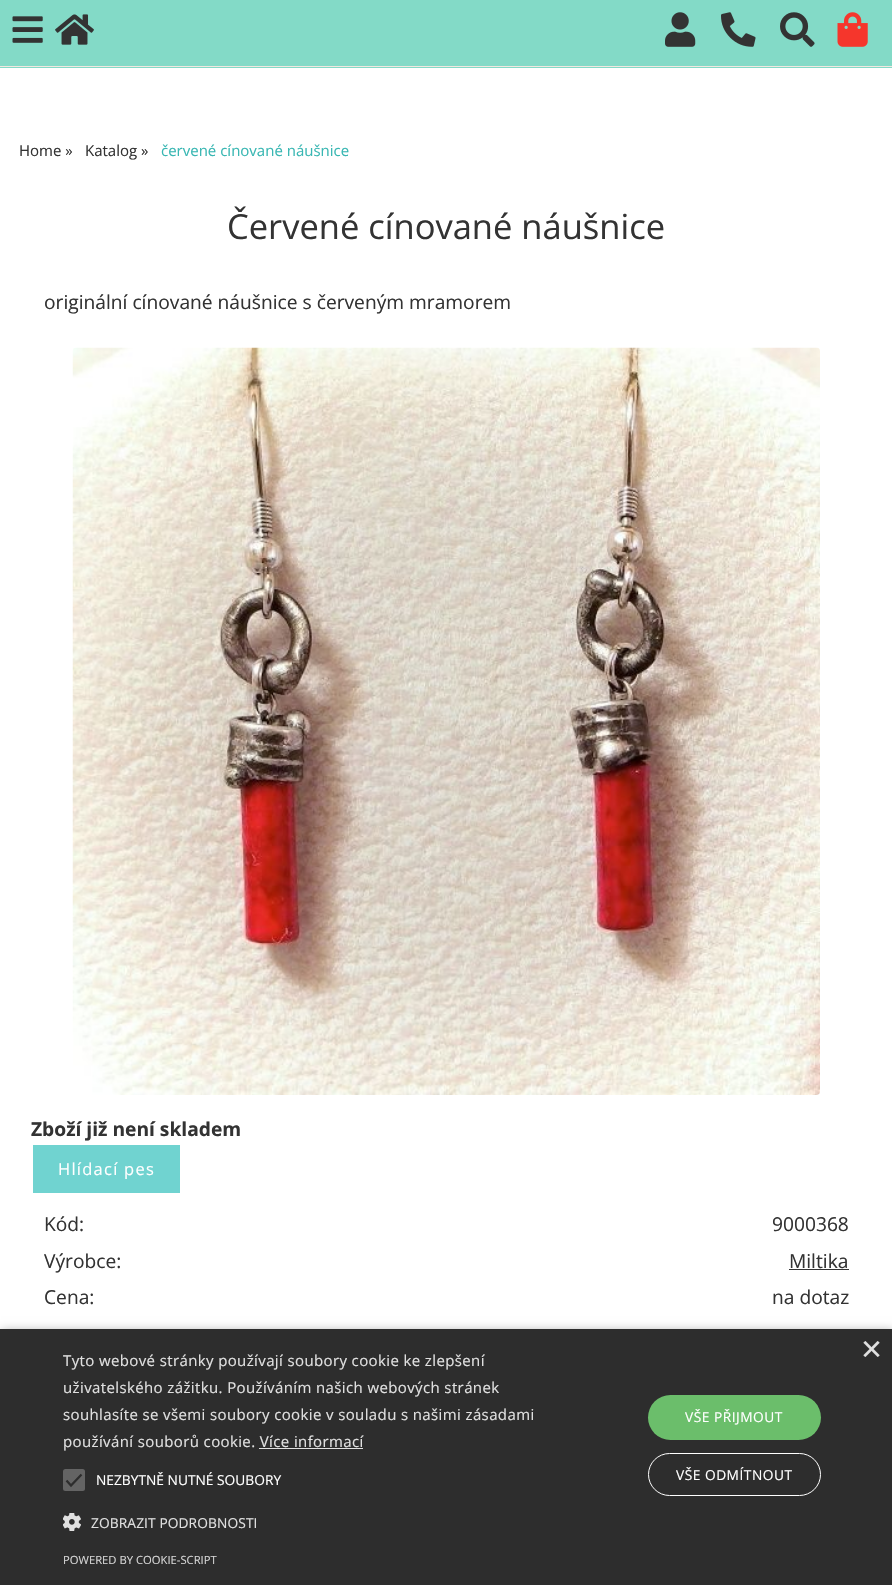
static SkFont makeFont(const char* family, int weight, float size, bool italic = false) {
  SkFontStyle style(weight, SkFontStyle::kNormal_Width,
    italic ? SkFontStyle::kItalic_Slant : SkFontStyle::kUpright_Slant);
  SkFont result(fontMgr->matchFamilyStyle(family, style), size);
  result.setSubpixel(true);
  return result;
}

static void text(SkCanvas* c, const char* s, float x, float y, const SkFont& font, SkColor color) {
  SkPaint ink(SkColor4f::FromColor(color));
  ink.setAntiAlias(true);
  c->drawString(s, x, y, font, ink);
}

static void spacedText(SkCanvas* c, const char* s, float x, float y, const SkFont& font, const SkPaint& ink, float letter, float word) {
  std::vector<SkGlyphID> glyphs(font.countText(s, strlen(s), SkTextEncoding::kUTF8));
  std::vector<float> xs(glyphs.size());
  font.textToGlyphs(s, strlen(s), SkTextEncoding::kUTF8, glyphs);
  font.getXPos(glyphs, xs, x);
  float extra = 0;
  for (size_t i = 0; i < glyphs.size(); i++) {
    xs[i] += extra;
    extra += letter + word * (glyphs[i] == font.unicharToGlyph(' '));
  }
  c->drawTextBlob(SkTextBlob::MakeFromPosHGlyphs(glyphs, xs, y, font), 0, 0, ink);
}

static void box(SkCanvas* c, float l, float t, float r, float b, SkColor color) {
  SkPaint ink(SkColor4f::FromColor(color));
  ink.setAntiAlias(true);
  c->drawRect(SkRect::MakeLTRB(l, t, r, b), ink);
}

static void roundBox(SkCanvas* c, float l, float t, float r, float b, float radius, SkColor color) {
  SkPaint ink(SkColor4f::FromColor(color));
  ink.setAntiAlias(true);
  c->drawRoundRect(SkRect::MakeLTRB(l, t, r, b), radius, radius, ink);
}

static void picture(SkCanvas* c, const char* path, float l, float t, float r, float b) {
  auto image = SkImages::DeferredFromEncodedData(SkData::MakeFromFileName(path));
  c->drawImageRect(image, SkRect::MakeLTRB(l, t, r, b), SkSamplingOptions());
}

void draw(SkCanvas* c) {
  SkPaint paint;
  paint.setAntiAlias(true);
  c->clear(0xffffffff);
  box(c, 0, 0, 892, 68, 0xff83dac7);
  box(c, 0, 66, 892, 67, 0xfff1e8e0);
  picture(c, "img_01.png", 12, 16, 43, 43);
  picture(c, "img_02.png", 55, 14, 94, 45);
  picture(c, "img_03.png", 665, 12, 696, 47);
  picture(c, "img_04.png", 721, 12, 756, 47);
  picture(c, "img_05.png", 780, 12, 815, 47);
  picture(c, "img_06.png", 837, 12, 868, 47);
  SkFont face1 = makeFont("Open Sans", 400, 15);
  text(c, "Home »", 19, 156, face1, 0xff333333);
  text(c, "Katalog »", 85, 156, face1, 0xff333333);
  text(c, "červené cínované náušnice", 161, 156, face1, 0xff39b7b3);
  SkFont face2 = makeFont("Open Sans", 400, 34.5f);
  text(c, "Červené cínované náušnice", 227, 239, face2, 0xff333333);
  SkFont face3 = makeFont("Open Sans", 400, 19.2f);
  text(c, "originální cínované náušnice s červeným mramorem", 44, 309, face3, 0xff333333);
  picture(c, "img_07.png", 72, 347, 820, 1095);
  SkFont face4 = makeFont("Open Sans", 700, 19.2f);
  text(c, "Zboží již není skladem", 31, 1136, face4, 0xff333333);
  box(c, 33, 1145, 180, 1193, 0xff70d3d0);
  SkFont face5 = makeFont("Open Sans", 400, 16.5f);
  paint.setColor(0xffffffff);
  spacedText(c, "Hlídací pes", 58, 1175, face5, paint, 1.25f, 0);
  text(c, "Kód:", 44, 1231, face3, 0xff333333);
  text(c, "9000368", 772, 1231, face3, 0xff333333);
  text(c, "Výrobce:", 44, 1268, face3, 0xff333333);
  text(c, "Miltika", 789, 1268, face3, 0xff333333);
  box(c, 789, 1269, 849, 1270, 0xff333333);
  text(c, "Cena:", 44, 1304, face3, 0xff333333);
  text(c, "na dotaz", 772, 1304, face3, 0xff333333);
  paint.setColor(0x59000000);
  paint.setMaskFilter(SkMaskFilter::MakeBlur(kNormal_SkBlurStyle, 5));
  c->drawRect(SkRect::MakeLTRB(1, 1331, 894, 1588), paint);
  paint.setMaskFilter(nullptr);
  box(c, 0, 1329, 892, 1585, 0xff2d2d2d);
  SkFont face6 = makeFont("Liberation Sans", 400, 36);
  text(c, "×", 861, 1361, face6, 0xffe0e0e0);
  paint.setColor(0xffe0e0e0);
  spacedText(c, "Tyto webové stránky používají soubory cookie ke zlepšení", 63, 1366, face1, paint, 0.38f, 0);
  spacedText(c, "uživatelského zážitku. Používáním našich webových stránek", 63, 1393, face1, paint, 0.38f, 0);
  spacedText(c, "souhlasíte se všemi soubory cookie v souladu s našimi zásadami", 63, 1420, face1, paint, 0.38f, 0);
  spacedText(c, "používání souborů cookie. Více informací", 63, 1447, face1, paint, 0.38f, 0);
  box(c, 259, 1448, 363, 1449, 0xffe0e0e0);
  roundBox(c, 63, 1469, 85, 1491, 2.5f, 0xff646464);
  paint.setStyle(SkPaint::kStroke_Style);
  paint.setStrokeWidth(2.3f);
  paint.setColor(0xff2d2d2d);
  c->drawPath(SkPathBuilder().moveTo(66.5f, 1480.5f).lineTo(71, 1485.5f).lineTo(81.5f, 1474.5f).detach(), paint);
  SkFont face7 = makeFont("Open Sans", 400, 13.75f);
  text(c, "NEZBYTNĚ NUTNÉ SOUBORY", 96, 1485, face7, 0xffffffff);
  picture(c, "img_08.png", 63, 1513, 81, 1531);
  paint.setStyle(SkPaint::kFill_Style);
  paint.setColor(0xffe0e0e0);
  spacedText(c, "ZOBRAZIT PODROBNOSTI", 91, 1528, face7, paint, 0.1f, 0);
  roundBox(c, 648, 1395, 821, 1440, 22.5f, 0xff6bbe6b);
  paint.setColor(0xffffffff);
  spacedText(c, "VŠE PŘIJMOUT", 685, 1422, face7, paint, 0.5f, 0);
  paint.setStyle(SkPaint::kStroke_Style);
  paint.setStrokeWidth(1);
  c->drawRoundRect(SkRect::MakeLTRB(648.5f, 1453.5f, 820.5f, 1495.5f), 21, 21, paint);
  paint.setStyle(SkPaint::kFill_Style);
  spacedText(c, "VŠE ODMÍTNOUT", 676, 1480, face7, paint, 0.5f, 0);
  SkFont face8 = makeFont("Open Sans", 400, 11.25f);
  text(c, "POWERED BY COOKIE-SCRIPT", 63, 1564, face8, 0xffd5d5d5);
}
